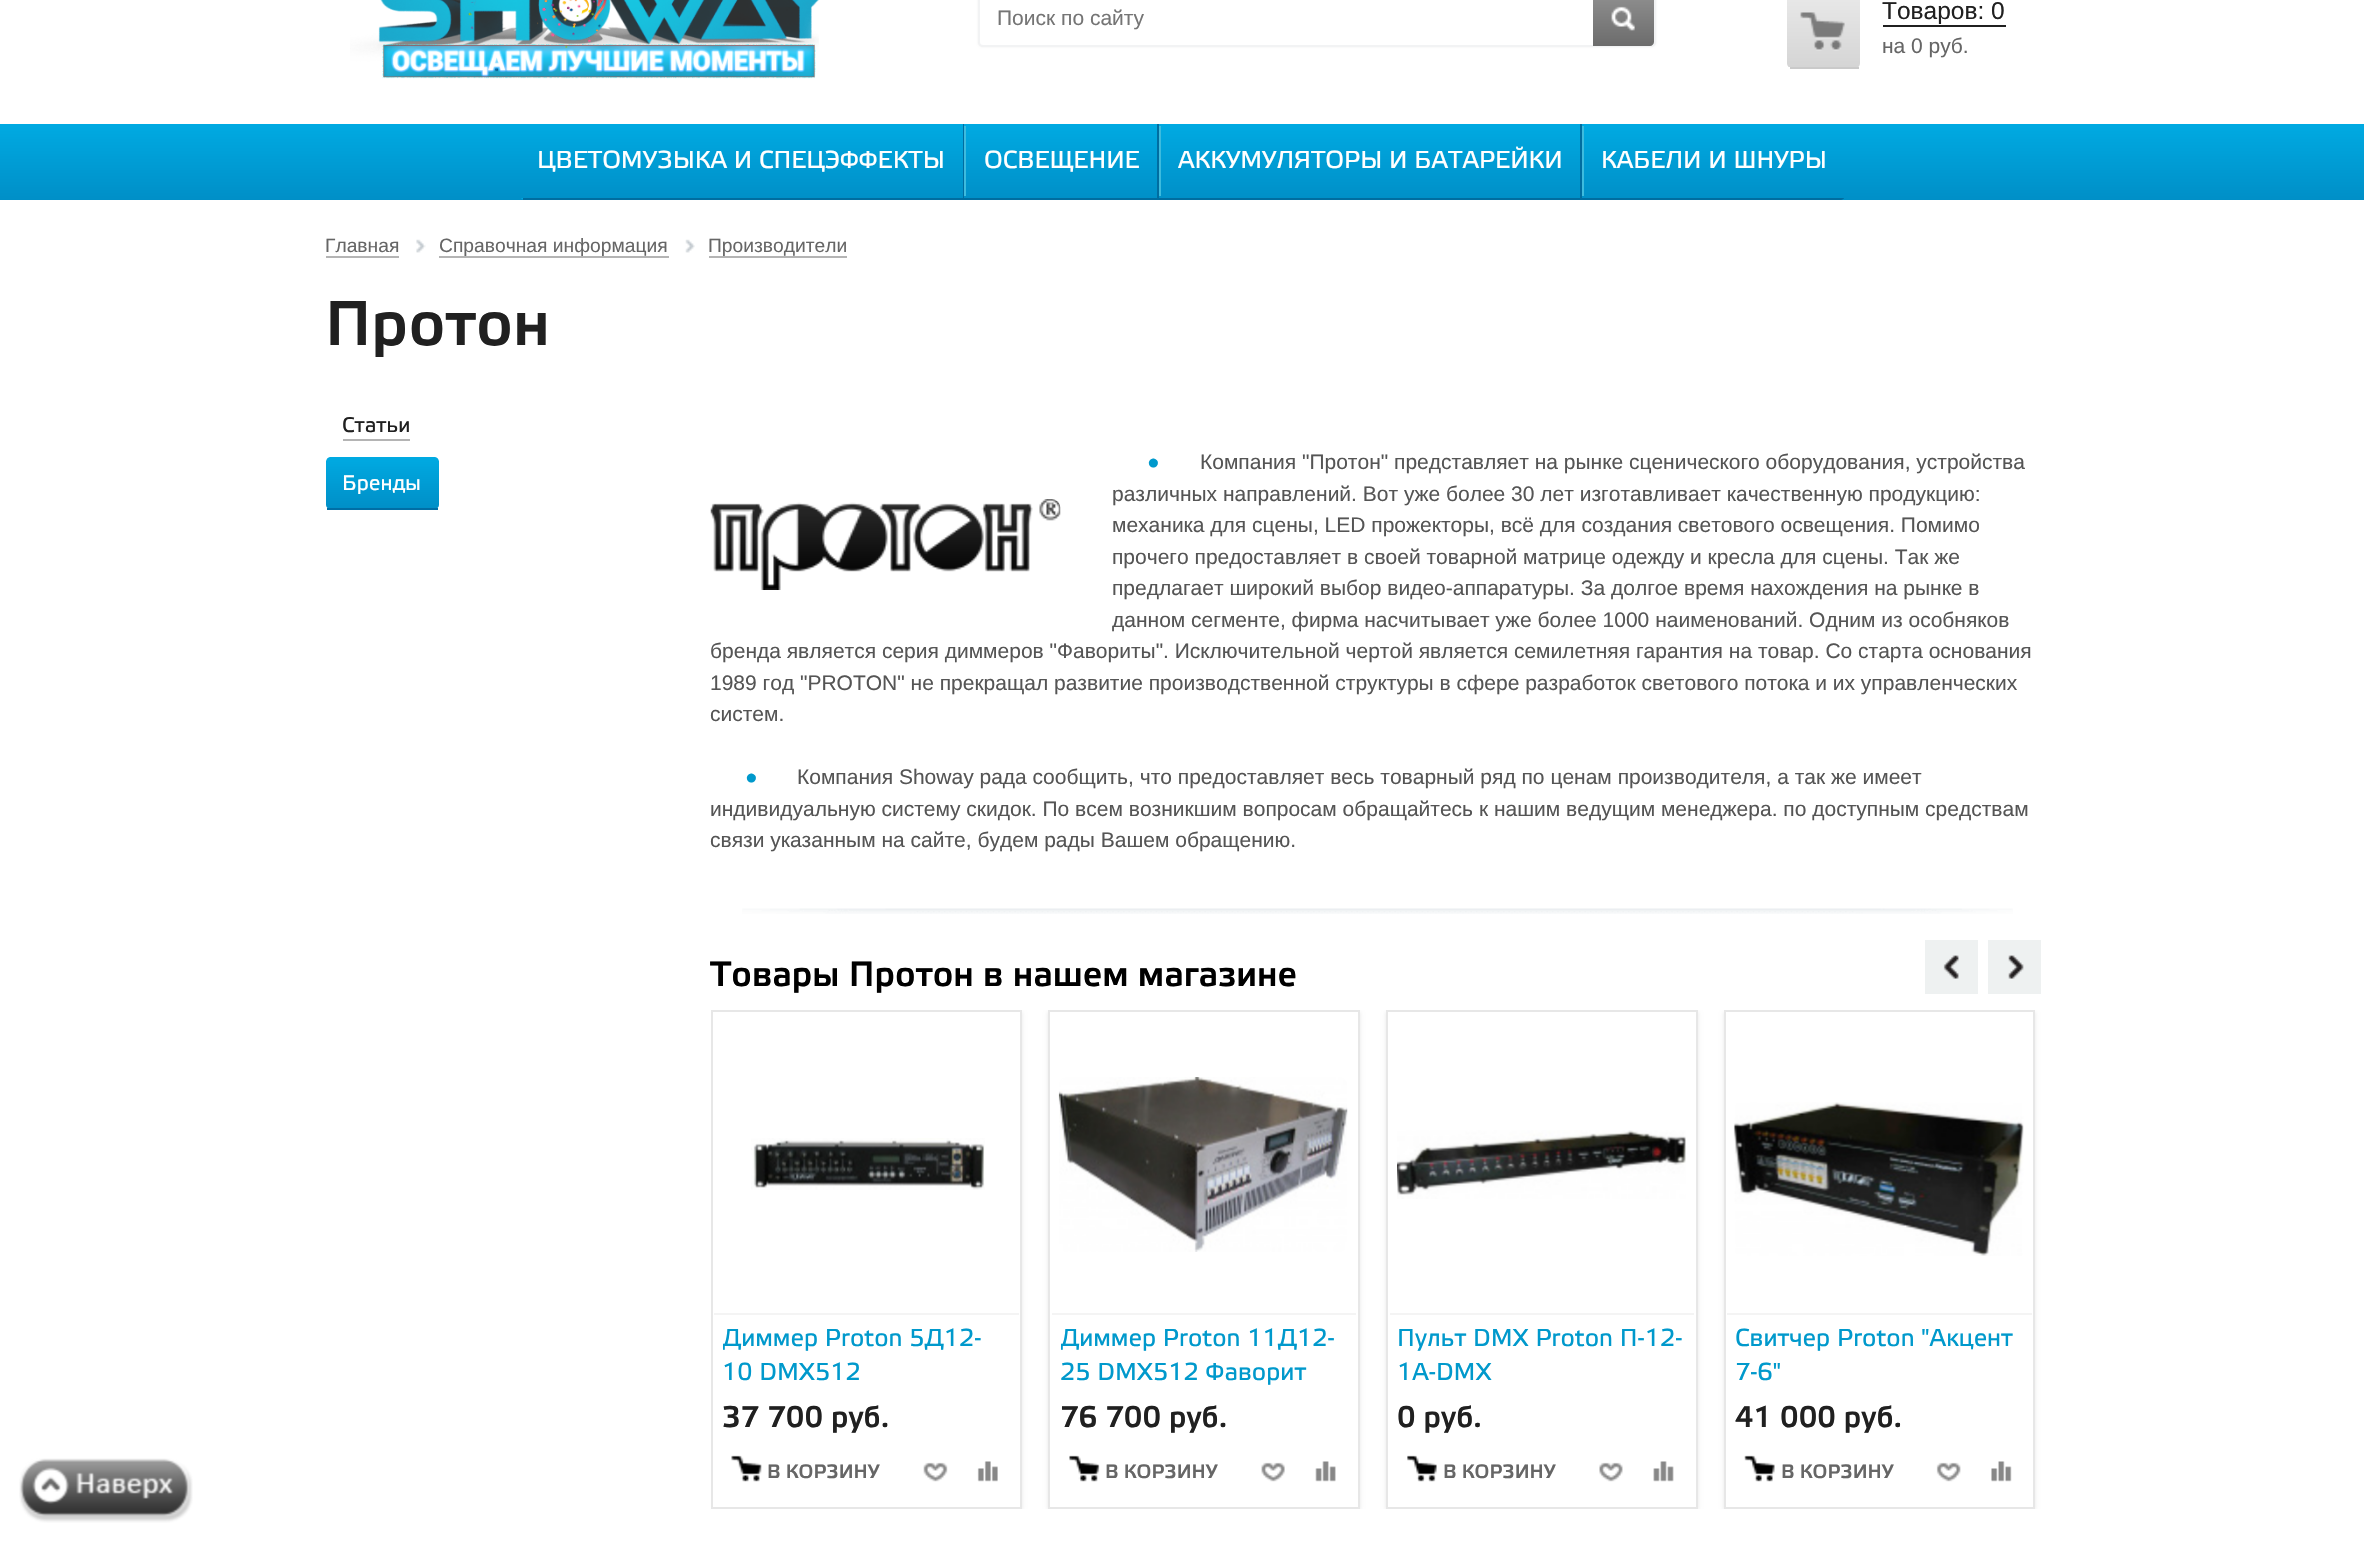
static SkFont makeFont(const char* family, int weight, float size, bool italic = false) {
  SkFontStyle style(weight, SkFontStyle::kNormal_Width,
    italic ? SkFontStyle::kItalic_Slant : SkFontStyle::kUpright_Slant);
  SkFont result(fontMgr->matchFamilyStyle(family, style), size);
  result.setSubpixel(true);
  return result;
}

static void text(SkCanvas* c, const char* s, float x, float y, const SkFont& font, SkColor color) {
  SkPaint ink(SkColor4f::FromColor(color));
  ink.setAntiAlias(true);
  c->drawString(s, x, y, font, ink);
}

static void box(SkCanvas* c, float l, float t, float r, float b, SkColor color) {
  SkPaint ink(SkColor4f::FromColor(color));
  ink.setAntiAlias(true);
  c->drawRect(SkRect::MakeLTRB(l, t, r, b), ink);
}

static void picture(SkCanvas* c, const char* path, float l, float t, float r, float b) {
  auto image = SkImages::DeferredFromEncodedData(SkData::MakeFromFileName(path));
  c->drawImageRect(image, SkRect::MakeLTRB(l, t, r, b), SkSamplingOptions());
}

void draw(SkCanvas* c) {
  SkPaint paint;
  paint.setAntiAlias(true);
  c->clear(0xffffffff);
  picture(c, "img_01.png", 350, 0, 819, 79);
  paint.setColor(0xffededed);
  paint.setMaskFilter(SkMaskFilter::MakeBlur(kNormal_SkBlurStyle, 1));
  c->drawRoundRect(SkRect::MakeLTRB(978, -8, 1656, 47), 5, 5, paint);
  paint.setMaskFilter(nullptr);
  paint.setColor(0xffffffff);
  c->drawRoundRect(SkRect::MakeLTRB(979, -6, 1655, 46), 4, 4, paint);
  paint.setStyle(SkPaint::kStroke_Style);
  paint.setStrokeWidth(2);
  paint.setColor(0xfff2f3f4);
  c->drawRoundRect(SkRect::MakeLTRB(979, -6, 1655, 46), 4, 4, paint);
  SkFont face1 = makeFont("Liberation Sans", 400, 21);
  text(c, "Поиск по сайту", 997, 25, face1, 0xff757575);
  paint.setStyle(SkPaint::kFill_Style);
  {
    const SkColor colors[] = {0xff919191, 0xff6c6c6c};
    const float stops[] = {0, 1};
    const SkPoint ends[] = {{1623, -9}, {1623, 46}};
    paint.setShader(SkGradientShader::MakeLinear(ends, colors, stops, 2, SkTileMode::kClamp));
    paint.setAlpha(255);
  }
  c->drawPath(SkPathBuilder().moveTo(1593, -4).lineTo(1650, -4).cubicTo(1652, -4, 1654, -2, 1654, 0).lineTo(1654, 42).cubicTo(1654, 44, 1652, 46, 1650, 46).lineTo(1593, 46).close().detach(), paint);
  picture(c, "img_02.png", 1611, 6, 1635, 31);
  c->save();
  c->clipPath(SkPathBuilder().moveTo(1792, -7).lineTo(1855, -7).cubicTo(1858, -7, 1860, -5, 1860, -2).lineTo(1860, 63).cubicTo(1860, 66, 1858, 68, 1855, 68).lineTo(1792, 68).cubicTo(1789, 68, 1787, 66, 1787, 63).lineTo(1787, -2).cubicTo(1787, -5, 1789, -7, 1792, -7).close().detach(), true);
  {
    const SkColor colors[] = {0xffe9e9e9, 0xffd5d5d5};
    const float stops[] = {0, 1};
    const SkPoint ends[] = {{1824, -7}, {1824, 67}};
    paint.setShader(SkGradientShader::MakeLinear(ends, colors, stops, 2, SkTileMode::kClamp));
    paint.setAlpha(255);
  }
  c->drawPath(SkPathBuilder().moveTo(1792, -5).lineTo(1855, -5).cubicTo(1858, -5, 1860, -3, 1860, 0).lineTo(1860, 67).lineTo(1787, 67).lineTo(1787, 0).cubicTo(1787, -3, 1789, -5, 1792, -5).close().detach(), paint);
  c->restore();
  box(c, 1790, 67, 1859, 69, 0xffcacaca);
  picture(c, "img_03.png", 1800, 12, 1845, 51);
  SkFont face2 = makeFont("Liberation Sans", 400, 24.5f);
  text(c, "Товаров: 0", 1882, 19, face2, 0xff202020);
  box(c, 1883, 25, 2006, 27, 0xff202020);
  text(c, "на 0 руб.", 1882, 53, face1, 0xff666666);
  {
    const SkColor colors[] = {0xff00aae2, 0xff008fc7};
    const float stops[] = {0, 1};
    const SkPoint ends[] = {{1182, 124}, {1182, 200}};
    paint.setShader(SkGradientShader::MakeLinear(ends, colors, stops, 2, SkTileMode::kClamp));
    paint.setAlpha(255);
  }
  c->drawRect(SkRect::MakeLTRB(0, 124, 2364, 200), paint);
  c->save();
  c->clipPath(SkPathBuilder().moveTo(525, 124).lineTo(1840, 124).cubicTo(1843, 124, 1845, 126, 1845, 129).lineTo(1845, 195).cubicTo(1845, 198, 1843, 200, 1840, 200).lineTo(525, 200).cubicTo(522, 200, 520, 198, 520, 195).lineTo(520, 129).cubicTo(520, 126, 522, 124, 525, 124).close().detach(), true);
  c->clipPath(SkPathBuilder().moveTo(525, 124).lineTo(964, 124).lineTo(964, 200).lineTo(525, 200).cubicTo(522, 200, 520, 198, 520, 195).lineTo(520, 129).cubicTo(520, 126, 522, 124, 525, 124).close().detach(), true);
  {
    const SkColor colors[] = {0xff00aae2, 0xff008fc7};
    const float stops[] = {0, 1};
    const SkPoint ends[] = {{741, 198}, {741, 271}};
    paint.setShader(SkGradientShader::MakeLinear(ends, colors, stops, 2, SkTileMode::kClamp));
    paint.setAlpha(255);
  }
  c->drawRect(SkRect::MakeLTRB(520, 198, 525, 200), paint);
  c->restore();
  box(c, 963, 124, 964, 200, 0xff006da0);
  box(c, 523, 198, 964, 200, 0xff006da0);
  SkFont face3 = makeFont("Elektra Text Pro", 400, 24.5f);
  text(c, "ЦВЕТОМУЗЫКА И СПЕЦЭФФЕКТЫ", 537, 168, face3, 0xffffffff);
  box(c, 1157, 124, 1159, 200, 0xff006da0);
  box(c, 964, 198, 1159, 200, 0xff006da0);
  box(c, 964, 126, 966, 196, 0xff3dbbde);
  text(c, "ОСВЕЩЕНИЕ", 984, 168, face3, 0xffffffff);
  box(c, 1580, 124, 1582, 200, 0xff006da0);
  box(c, 1159, 198, 1582, 200, 0xff006da0);
  box(c, 1159, 126, 1161, 196, 0xff3dbbde);
  text(c, "АККУМУЛЯТОРЫ И БАТАРЕЙКИ", 1178, 168, face3, 0xffffffff);
  c->save();
  c->clipPath(SkPathBuilder().moveTo(525, 124).lineTo(1840, 124).cubicTo(1843, 124, 1845, 126, 1845, 129).lineTo(1845, 195).cubicTo(1845, 198, 1843, 200, 1840, 200).lineTo(525, 200).cubicTo(522, 200, 520, 198, 520, 195).lineTo(520, 129).cubicTo(520, 126, 522, 124, 525, 124).close().detach(), true);
  box(c, 1582, 198, 1845, 200, 0xff006da0);
  c->restore();
  box(c, 1582, 126, 1584, 196, 0xff3dbbde);
  text(c, "КАБЕЛИ И ШНУРЫ", 1601, 168, face3, 0xffffffff);
  SkFont face4 = makeFont("Liberation Sans", 400, 19.25f);
  text(c, "Главная", 325, 252, face4, 0xff666666);
  box(c, 326, 256, 399, 258, 0xffb4b4b4);
  picture(c, "img_04.png", 416, 239, 426, 253);
  text(c, "Справочная информация", 439, 252, face4, 0xff666666);
  box(c, 439, 256, 669, 258, 0xffb4b4b4);
  picture(c, "img_05.png", 685, 239, 695, 253);
  text(c, "Производители", 708, 252, face4, 0xff666666);
  box(c, 709, 256, 847, 258, 0xffb4b4b4);
  SkFont face5 = makeFont("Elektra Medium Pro", 400, 63);
  text(c, "Протон", 325, 345, face5, 0xff202020);
  SkFont face6 = makeFont("Elektra Text Pro", 400, 21);
  text(c, "Статьи", 342, 432, face6, 0xff202020);
  box(c, 343, 439, 410, 441, 0xffb4b4b4);
  c->save();
  c->clipPath(SkPathBuilder().moveTo(330, 457).lineTo(435, 457).cubicTo(437, 457, 439, 459, 439, 461).lineTo(439, 505).cubicTo(439, 507, 437, 509, 435, 509).lineTo(330, 509).cubicTo(328, 509, 326, 507, 326, 505).lineTo(326, 461).cubicTo(326, 459, 328, 457, 330, 457).close().detach(), true);
  {
    const SkColor colors[] = {0xff00aae2, 0xff008fc7};
    const float stops[] = {0, 1};
    const SkPoint ends[] = {{382, 457}, {382, 508}};
    paint.setShader(SkGradientShader::MakeLinear(ends, colors, stops, 2, SkTileMode::kClamp));
    paint.setAlpha(255);
  }
  c->drawPath(SkPathBuilder().moveTo(330, 457).lineTo(435, 457).cubicTo(437, 457, 439, 459, 439, 461).lineTo(439, 508).lineTo(326, 508).lineTo(326, 461).cubicTo(326, 459, 328, 457, 330, 457).close().detach(), paint);
  c->restore();
  box(c, 327, 508, 438, 510, 0xff006ea5);
  text(c, "Бренды", 342, 490, face6, 0xffffffff);
  text(c, "●", 1147, 469, face1, 0xff0099cc);
  text(c, "Компания \"Протон\" представляет на рынке сценического оборудования, устройства", 1200, 469, face1, 0xff555555);
  text(c, "различных направлений. Вот уже более 30 лет изготавливает качественную продукцию:", 1112, 501, face1, 0xff555555);
  text(c, "механика для сцены, LED прожекторы, всё для создания светового освещения. Помимо", 1112, 532, face1, 0xff555555);
  text(c, "прочего предоставляет в своей товарной матрице одежду и кресла для сцены. Так же", 1112, 564, face1, 0xff555555);
  text(c, "предлагает широкий выбор видео-аппаратуры. За долгое время нахождения на рынке в", 1112, 595, face1, 0xff555555);
  text(c, "данном сегменте, фирма насчитывает уже более 1000 наименований. Одним из особняков", 1112, 627, face1, 0xff555555);
  text(c, "бренда является серия диммеров \"Фавориты\". Исключительной чертой является семилетняя гарантия на товар. Со старта основания", 710, 658, face1, 0xff555555);
  text(c, "1989 год \"PROTON\" не прекращал развитие производственной структуры в сфере разработок светового потока и их управленческих", 710, 690, face1, 0xff555555);
  text(c, "систем.", 710, 721, face1, 0xff555555);
  text(c, "●", 745, 784, face1, 0xff0099cc);
  text(c, "Компания Showay рада сообщить, что предоставляет весь товарный ряд по ценам производителя, а так же имеет", 797, 784, face1, 0xff555555);
  text(c, "индивидуальную систему скидок. По всем возникшим вопросам обращайтесь к нашим ведущим менеджера. по доступным средствам", 710, 816, face1, 0xff555555);
  text(c, "связи указанным на сайте, будем рады Вашем обращению.", 710, 847, face1, 0xff555555);
  picture(c, "img_06.png", 710, 499, 1061, 590);
  picture(c, "img_07.png", 742, 908, 2013, 914);
  SkFont face7 = makeFont("Elektra Medium Pro", 400, 35);
  text(c, "Товары Протон в нашем магазине", 710, 986, face7, 0xff000000);
  box(c, 1925, 940, 1978, 994, 0xffeef1f1);
  picture(c, "img_08.png", 1943, 955, 1959, 979);
  box(c, 1988, 940, 2041, 994, 0xffeef1f1);
  picture(c, "img_09.png", 2008, 955, 2024, 979);
  c->save();
  c->clipRect(SkRect::MakeLTRB(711, 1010, 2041, 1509));
  paint.setShader(nullptr);
  paint.setColor(0xffe7e7e7);
  paint.setMaskFilter(SkMaskFilter::MakeBlur(kNormal_SkBlurStyle, 2));
  c->drawRect(SkRect::MakeLTRB(711, 1012, 1022, 1510), paint);
  paint.setMaskFilter(nullptr);
  c->restore();
  paint.setColor(0xffffffff);
  c->drawRect(SkRect::MakeLTRB(712, 1011, 1021, 1508), paint);
  paint.setStyle(SkPaint::kStroke_Style);
  paint.setColor(0xffe7e7e7);
  c->drawRect(SkRect::MakeLTRB(712, 1011, 1021, 1508), paint);
  picture(c, "img_10.png", 751, 1138, 985, 1190);
  box(c, 714, 1313, 1019, 1315, 0xfff4f4f4);
  c->save();
  c->clipRect(SkRect::MakeLTRB(723, 1323, 1010, 1390));
  text(c, "Диммер Proton 5Д12-", 722, 1346, face3, 0xff0099cc);
  c->restore();
  text(c, "10 DMX512", 722, 1380, face3, 0xff0099cc);
  SkFont face8 = makeFont("Elektra Medium Pro", 400, 29.75f);
  text(c, "37 700 руб.", 722, 1427, face8, 0xff202020);
  picture(c, "img_11.png", 731, 1455, 762, 1482);
  SkFont face9 = makeFont("Elektra Medium Pro", 400, 19.25f);
  text(c, "В КОРЗИНУ", 767, 1478, face9, 0xff666666);
  picture(c, "img_12.png", 923, 1462, 948, 1482);
  picture(c, "img_13.png", 977, 1461, 998, 1482);
  c->save();
  c->clipRect(SkRect::MakeLTRB(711, 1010, 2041, 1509));
  paint.setStyle(SkPaint::kFill_Style);
  paint.setMaskFilter(SkMaskFilter::MakeBlur(kNormal_SkBlurStyle, 2));
  c->drawRect(SkRect::MakeLTRB(1048, 1012, 1360, 1510), paint);
  paint.setMaskFilter(nullptr);
  c->restore();
  paint.setColor(0xffffffff);
  c->drawRect(SkRect::MakeLTRB(1049, 1011, 1359, 1508), paint);
  paint.setStyle(SkPaint::kStroke_Style);
  paint.setColor(0xffe7e7e7);
  c->drawRect(SkRect::MakeLTRB(1049, 1011, 1359, 1508), paint);
  picture(c, "img_14.png", 1058, 1077, 1348, 1252);
  box(c, 1052, 1313, 1356, 1315, 0xfff4f4f4);
  c->save();
  c->clipRect(SkRect::MakeLTRB(1061, 1323, 1348, 1390));
  text(c, "Диммер Proton 11Д12-", 1060, 1346, face3, 0xff0099cc);
  c->restore();
  text(c, "25 DMX512 Фаворит", 1060, 1380, face3, 0xff0099cc);
  text(c, "76 700 руб.", 1060, 1427, face8, 0xff202020);
  picture(c, "img_15.png", 1069, 1455, 1100, 1482);
  text(c, "В КОРЗИНУ", 1105, 1478, face9, 0xff666666);
  picture(c, "img_16.png", 1261, 1462, 1285, 1482);
  picture(c, "img_17.png", 1315, 1461, 1336, 1482);
  c->save();
  c->clipRect(SkRect::MakeLTRB(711, 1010, 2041, 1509));
  paint.setStyle(SkPaint::kFill_Style);
  paint.setMaskFilter(SkMaskFilter::MakeBlur(kNormal_SkBlurStyle, 2));
  c->drawRect(SkRect::MakeLTRB(1386, 1012, 1698, 1510), paint);
  paint.setMaskFilter(nullptr);
  c->restore();
  paint.setColor(0xffffffff);
  c->drawRect(SkRect::MakeLTRB(1387, 1011, 1697, 1508), paint);
  paint.setStyle(SkPaint::kStroke_Style);
  paint.setColor(0xffe7e7e7);
  c->drawRect(SkRect::MakeLTRB(1387, 1011, 1697, 1508), paint);
  picture(c, "img_18.png", 1397, 1130, 1686, 1199);
  box(c, 1390, 1313, 1694, 1315, 0xfff4f4f4);
  text(c, "Пульт DMX Proton П-12-", 1397, 1346, face3, 0xff0099cc);
  text(c, "1А-DMX", 1397, 1380, face3, 0xff0099cc);
  text(c, "0 руб.", 1397, 1427, face8, 0xff202020);
  picture(c, "img_19.png", 1407, 1455, 1437, 1482);
  text(c, "В КОРЗИНУ", 1443, 1478, face9, 0xff666666);
  picture(c, "img_20.png", 1599, 1462, 1623, 1482);
  picture(c, "img_21.png", 1653, 1461, 1674, 1482);
  c->save();
  c->clipRect(SkRect::MakeLTRB(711, 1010, 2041, 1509));
  paint.setStyle(SkPaint::kFill_Style);
  paint.setMaskFilter(SkMaskFilter::MakeBlur(kNormal_SkBlurStyle, 2));
  c->drawRect(SkRect::MakeLTRB(1724, 1012, 2035, 1510), paint);
  paint.setMaskFilter(nullptr);
  c->restore();
  paint.setColor(0xffffffff);
  c->drawRect(SkRect::MakeLTRB(1725, 1011, 2034, 1508), paint);
  paint.setStyle(SkPaint::kStroke_Style);
  paint.setColor(0xffe7e7e7);
  c->drawRect(SkRect::MakeLTRB(1725, 1011, 2034, 1508), paint);
  picture(c, "img_22.png", 1733, 1102, 2024, 1256);
  box(c, 1727, 1313, 2032, 1315, 0xfff4f4f4);
  text(c, "Свитчер Proton \"Акцент", 1735, 1346, face3, 0xff0099cc);
  text(c, "7-6\"", 1735, 1380, face3, 0xff0099cc);
  text(c, "41 000 руб.", 1735, 1427, face8, 0xff202020);
  picture(c, "img_23.png", 1744, 1455, 1775, 1482);
  text(c, "В КОРЗИНУ", 1781, 1478, face9, 0xff666666);
  picture(c, "img_24.png", 1936, 1462, 1961, 1482);
  picture(c, "img_25.png", 1991, 1461, 2012, 1482);
  picture(c, "img_26.png", 19, 1458, 193, 1523);
}
